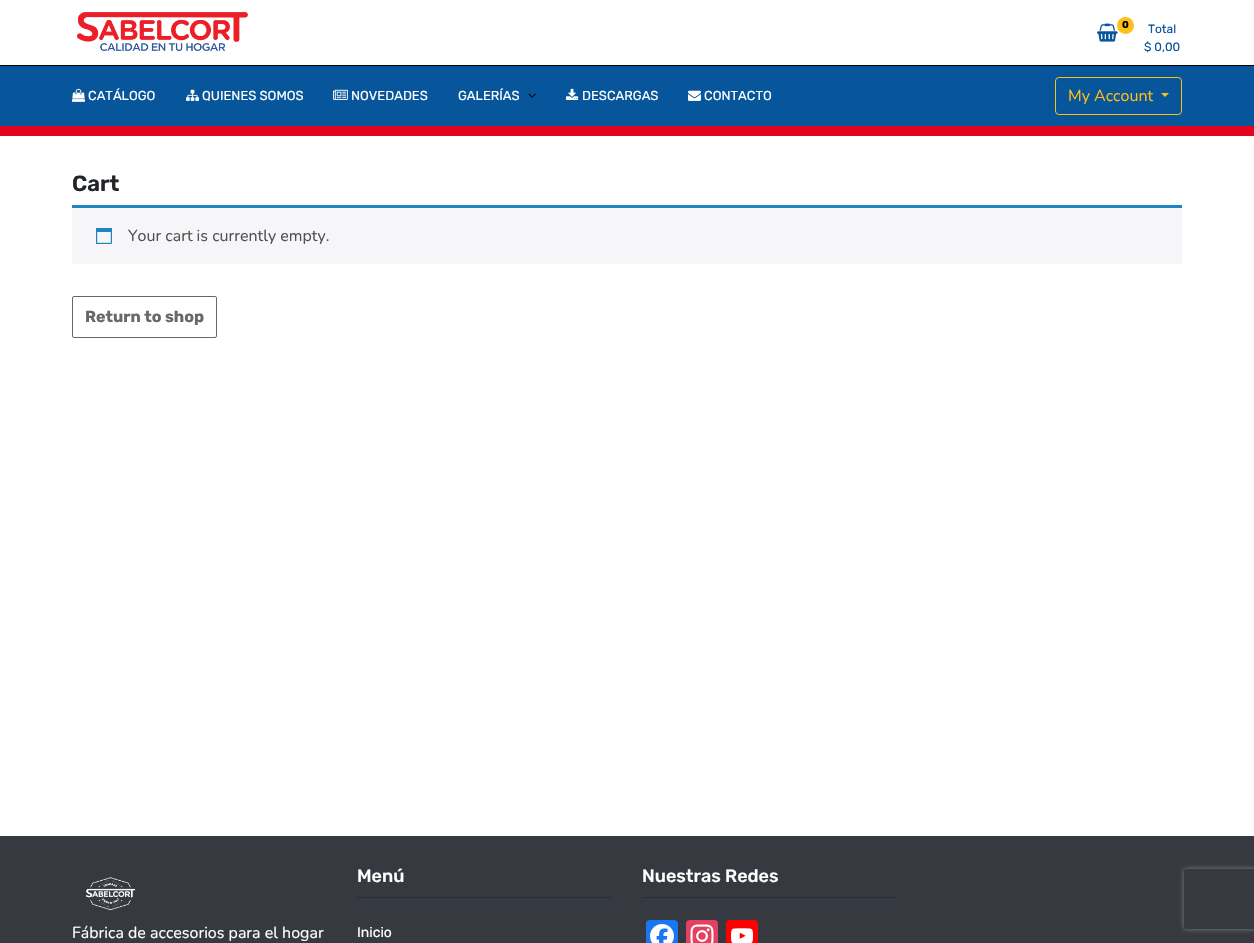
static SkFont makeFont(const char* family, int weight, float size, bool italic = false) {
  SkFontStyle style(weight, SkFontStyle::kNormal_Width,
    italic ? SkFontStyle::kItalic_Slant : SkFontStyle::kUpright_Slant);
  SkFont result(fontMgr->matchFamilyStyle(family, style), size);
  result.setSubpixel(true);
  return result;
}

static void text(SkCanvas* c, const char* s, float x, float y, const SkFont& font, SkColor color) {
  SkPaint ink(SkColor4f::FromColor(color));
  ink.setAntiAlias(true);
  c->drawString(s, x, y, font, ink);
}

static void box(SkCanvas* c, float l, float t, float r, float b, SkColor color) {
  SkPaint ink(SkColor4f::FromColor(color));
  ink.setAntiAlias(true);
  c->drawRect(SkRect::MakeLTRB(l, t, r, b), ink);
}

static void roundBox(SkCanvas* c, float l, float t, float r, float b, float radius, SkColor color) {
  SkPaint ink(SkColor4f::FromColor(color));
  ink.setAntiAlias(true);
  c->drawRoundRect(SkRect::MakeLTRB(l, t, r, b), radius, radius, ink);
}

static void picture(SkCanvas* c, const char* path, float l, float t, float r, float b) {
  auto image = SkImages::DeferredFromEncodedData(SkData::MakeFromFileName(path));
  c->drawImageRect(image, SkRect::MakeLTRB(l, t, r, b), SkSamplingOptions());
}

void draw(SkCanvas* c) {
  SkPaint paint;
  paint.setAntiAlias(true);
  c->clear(0xffffffff);
  box(c, 0, 66, 1254, 126, 0xff07559a);
  picture(c, "img_01.png", 77, 12, 248, 51);
  picture(c, "img_02.png", 1097, 23, 1118, 42);
  paint.setColor(0xffffbf19);
  c->drawCircle(1125.5f, 25.5f, 8.5f, paint);
  SkFont face1 = makeFont("Rubik", 700, 10);
  text(c, "0", 1122, 28, face1, 0xff000000);
  SkFont face2 = makeFont("Rubik", 400, 12);
  text(c, "Total", 1148, 33, face2, 0xff07559a);
  text(c, "$ 0,00", 1144, 51, face2, 0xff07559a);
  box(c, 0, 65, 1254, 66, 0xff000000);
  box(c, 0, 126, 1254, 136, 0xffe2041d);
  picture(c, "img_03.png", 72, 88, 85, 102);
  SkFont face3 = makeFont("Rubik", 400, 13);
  text(c, "CATÁLOGO", 88, 100, face3, 0xffffffff);
  picture(c, "img_04.png", 186, 89, 199, 101);
  text(c, "QUIENES SOMOS", 202, 100, face3, 0xffffffff);
  picture(c, "img_05.png", 333, 89, 348, 100);
  text(c, "NOVEDADES", 351, 100, face3, 0xffffffff);
  text(c, "GALERÍAS", 458, 100, face3, 0xffffffff);
  picture(c, "img_06.png", 528, 93, 536, 98);
  picture(c, "img_07.png", 566, 88, 579, 100);
  text(c, "DESCARGAS", 582, 100, face3, 0xffffffff);
  picture(c, "img_08.png", 688, 90, 701, 101);
  text(c, "CONTACTO", 704, 100, face3, 0xffffffff);
  paint.setStyle(SkPaint::kStroke_Style);
  paint.setStrokeWidth(1);
  c->drawRoundRect(SkRect::MakeLTRB(1055.5f, 77.5f, 1181.5f, 114.5f), 3.5f, 3.5f, paint);
  SkFont face4 = makeFont("Nunito", 400, 16);
  text(c, "My Account", 1068, 101, face4, 0xffffbf19);
  paint.setStyle(SkPaint::kFill_Style);
  c->drawPath(SkPathBuilder().moveTo(1161, 93).lineTo(1169, 93).lineTo(1165, 97).close().detach(), paint);
  SkFont face5 = makeFont("Rubik", 600, 22);
  text(c, "Cart", 72, 191, face5, 0xff212529);
  box(c, 72, 208, 1182, 264, 0xfff6f5f8);
  box(c, 72, 205, 1182, 208, 0xff1e85be);
  picture(c, "img_09.png", 96, 228, 112, 244);
  text(c, "Your cart is currently empty.", 128, 241, face4, 0xff515151);
  paint.setStyle(SkPaint::kStroke_Style);
  paint.setColor(0xff686868);
  c->drawRoundRect(SkRect::MakeLTRB(72.5f, 296.5f, 216.5f, 337.5f), 1.5f, 1.5f, paint);
  SkFont face6 = makeFont("Rubik", 700, 16);
  text(c, "Return to shop", 85, 322, face6, 0xff686868);
  box(c, 0, 836, 1254, 943, 0xff36393f);
  SkFont face7 = makeFont("Rubik", 500, 18);
  text(c, "Menú", 357, 882, face7, 0xffffffff);
  box(c, 357, 897, 612, 898, 0xff1f3040);
  SkFont face8 = makeFont("Rubik", 400, 14);
  text(c, "Inicio", 357, 937, face8, 0xffffffff);
  text(c, "Nuestras Redes", 642, 882, face7, 0xffffffff);
  box(c, 642, 897, 897, 898, 0xff1f3040);
  roundBox(c, 646, 920, 678, 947, 4, 0xff1877f2);
  picture(c, "img_10.png", 650, 924, 674, 943);
  roundBox(c, 686, 920, 718, 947, 4, 0xffe4405f);
  picture(c, "img_11.png", 690, 924, 714, 943);
  roundBox(c, 726, 920, 758, 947, 4, 0xffff0000);
  picture(c, "img_12.png", 731, 928, 753, 943);
  picture(c, "img_13.png", 85, 877, 136, 911);
  text(c, "Fábrica de accesorios para el hogar", 72, 938, face4, 0xffffffff);
  c->save();
  c->clipPath(SkPathBuilder(SkPathFillType::kEvenOdd).moveTo(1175, 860).lineTo(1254, 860).lineTo(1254, 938).lineTo(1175, 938).close().moveTo(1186, 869).lineTo(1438, 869).cubicTo(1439, 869, 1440, 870, 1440, 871).lineTo(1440, 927).cubicTo(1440, 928, 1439, 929, 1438, 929).lineTo(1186, 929).cubicTo(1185, 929, 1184, 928, 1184, 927).lineTo(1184, 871).cubicTo(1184, 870, 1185, 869, 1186, 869).close().detach(), true);
  paint.setStyle(SkPaint::kFill_Style);
  paint.setColor(0xff808080);
  paint.setMaskFilter(SkMaskFilter::MakeBlur(kNormal_SkBlurStyle, 2.5f));
  c->drawRoundRect(SkRect::MakeLTRB(1184, 869, 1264, 929), 2, 2, paint);
  paint.setMaskFilter(nullptr);
  c->restore();
}
